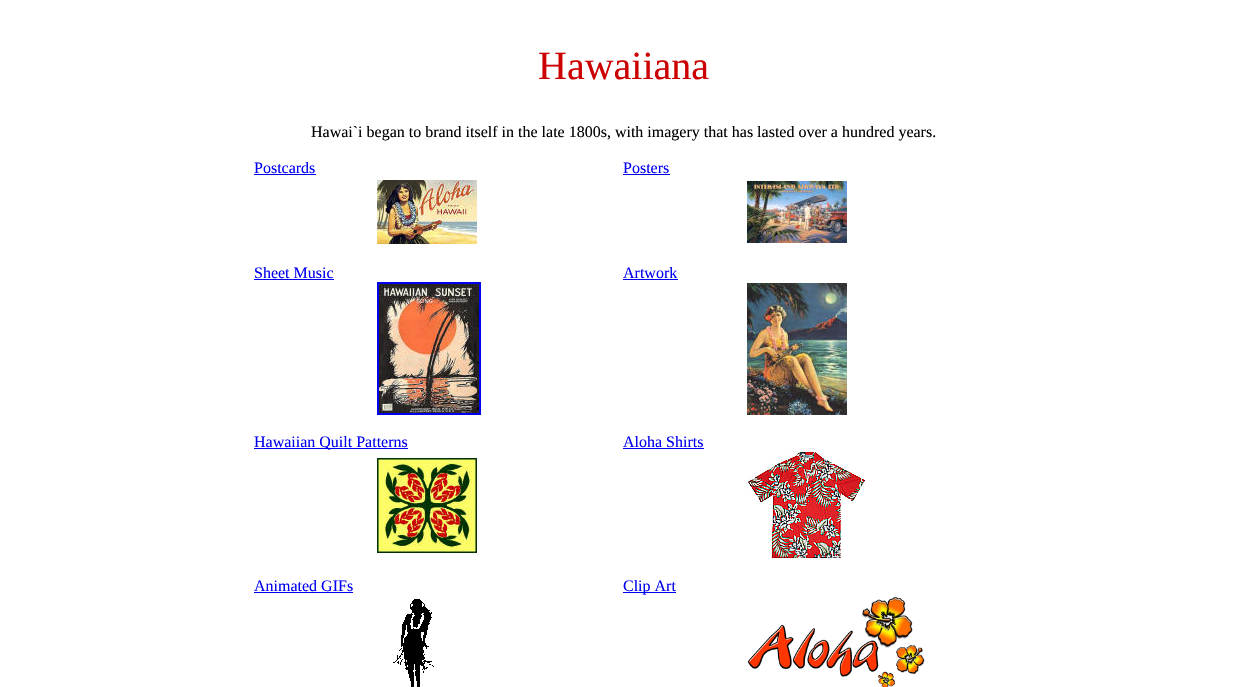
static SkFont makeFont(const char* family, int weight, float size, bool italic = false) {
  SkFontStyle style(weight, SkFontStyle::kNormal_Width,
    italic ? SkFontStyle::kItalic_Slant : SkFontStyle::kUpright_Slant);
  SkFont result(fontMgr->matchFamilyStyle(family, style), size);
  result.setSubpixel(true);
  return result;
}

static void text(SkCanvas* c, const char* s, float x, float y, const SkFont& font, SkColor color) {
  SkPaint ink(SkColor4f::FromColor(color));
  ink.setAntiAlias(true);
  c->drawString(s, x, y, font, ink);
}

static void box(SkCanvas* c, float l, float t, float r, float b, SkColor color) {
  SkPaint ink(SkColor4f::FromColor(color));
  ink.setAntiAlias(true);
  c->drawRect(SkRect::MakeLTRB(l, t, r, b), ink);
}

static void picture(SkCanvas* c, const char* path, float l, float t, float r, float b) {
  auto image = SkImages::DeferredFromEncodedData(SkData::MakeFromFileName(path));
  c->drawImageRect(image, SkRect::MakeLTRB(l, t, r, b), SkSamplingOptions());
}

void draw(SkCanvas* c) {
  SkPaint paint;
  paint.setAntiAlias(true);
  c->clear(0xffffffff);
  SkFont face1 = makeFont("Liberation Serif", 400, 40);
  text(c, "Hawaiiana", 538, 79, face1, 0xffcc0000);
  SkFont face2 = makeFont("Liberation Serif", 400, 16);
  text(c, "Hawai`i began to brand itself in the late 1800s, with imagery that has lasted over a hundred years.", 311, 137, face2, 0xff000000);
  text(c, "Postcards", 254, 173, face2, 0xff0000ee);
  box(c, 254, 174, 316, 175, 0xff0000ee);
  text(c, "Posters", 623, 173, face2, 0xff0000ee);
  box(c, 623, 174, 670, 175, 0xff0000ee);
  picture(c, "img_01.png", 377, 180, 477, 244);
  picture(c, "img_02.png", 747, 181, 847, 243);
  text(c, "Sheet Music", 254, 278, face2, 0xff0000ee);
  box(c, 254, 279, 334, 280, 0xff0000ee);
  text(c, "Artwork", 623, 278, face2, 0xff0000ee);
  box(c, 623, 279, 678, 280, 0xff0000ee);
  paint.setStyle(SkPaint::kStroke_Style);
  paint.setStrokeWidth(2);
  paint.setColor(0xff0000ee);
  c->drawRect(SkRect::MakeLTRB(378, 283, 480, 414), paint);
  picture(c, "img_03.png", 379, 284, 479, 413);
  picture(c, "img_04.png", 747, 283, 847, 415);
  box(c, 254, 448, 408, 449, 0xff0000ee);
  text(c, "Hawaiian Quilt Patterns", 254, 447, face2, 0xff0000ee);
  text(c, "Aloha Shirts", 623, 447, face2, 0xff0000ee);
  box(c, 623, 448, 704, 449, 0xff0000ee);
  picture(c, "img_05.png", 377, 458, 477, 553);
  picture(c, "img_06.png", 747, 451, 866, 559);
  text(c, "Animated GIFs", 254, 591, face2, 0xff0000ee);
  box(c, 254, 592, 353, 593, 0xff0000ee);
  box(c, 623, 592, 676, 593, 0xff0000ee);
  text(c, "Clip Art", 623, 591, face2, 0xff0000ee);
  picture(c, "img_07.png", 393, 599, 434, 687);
  picture(c, "img_08.png", 747, 596, 925, 687);
}
